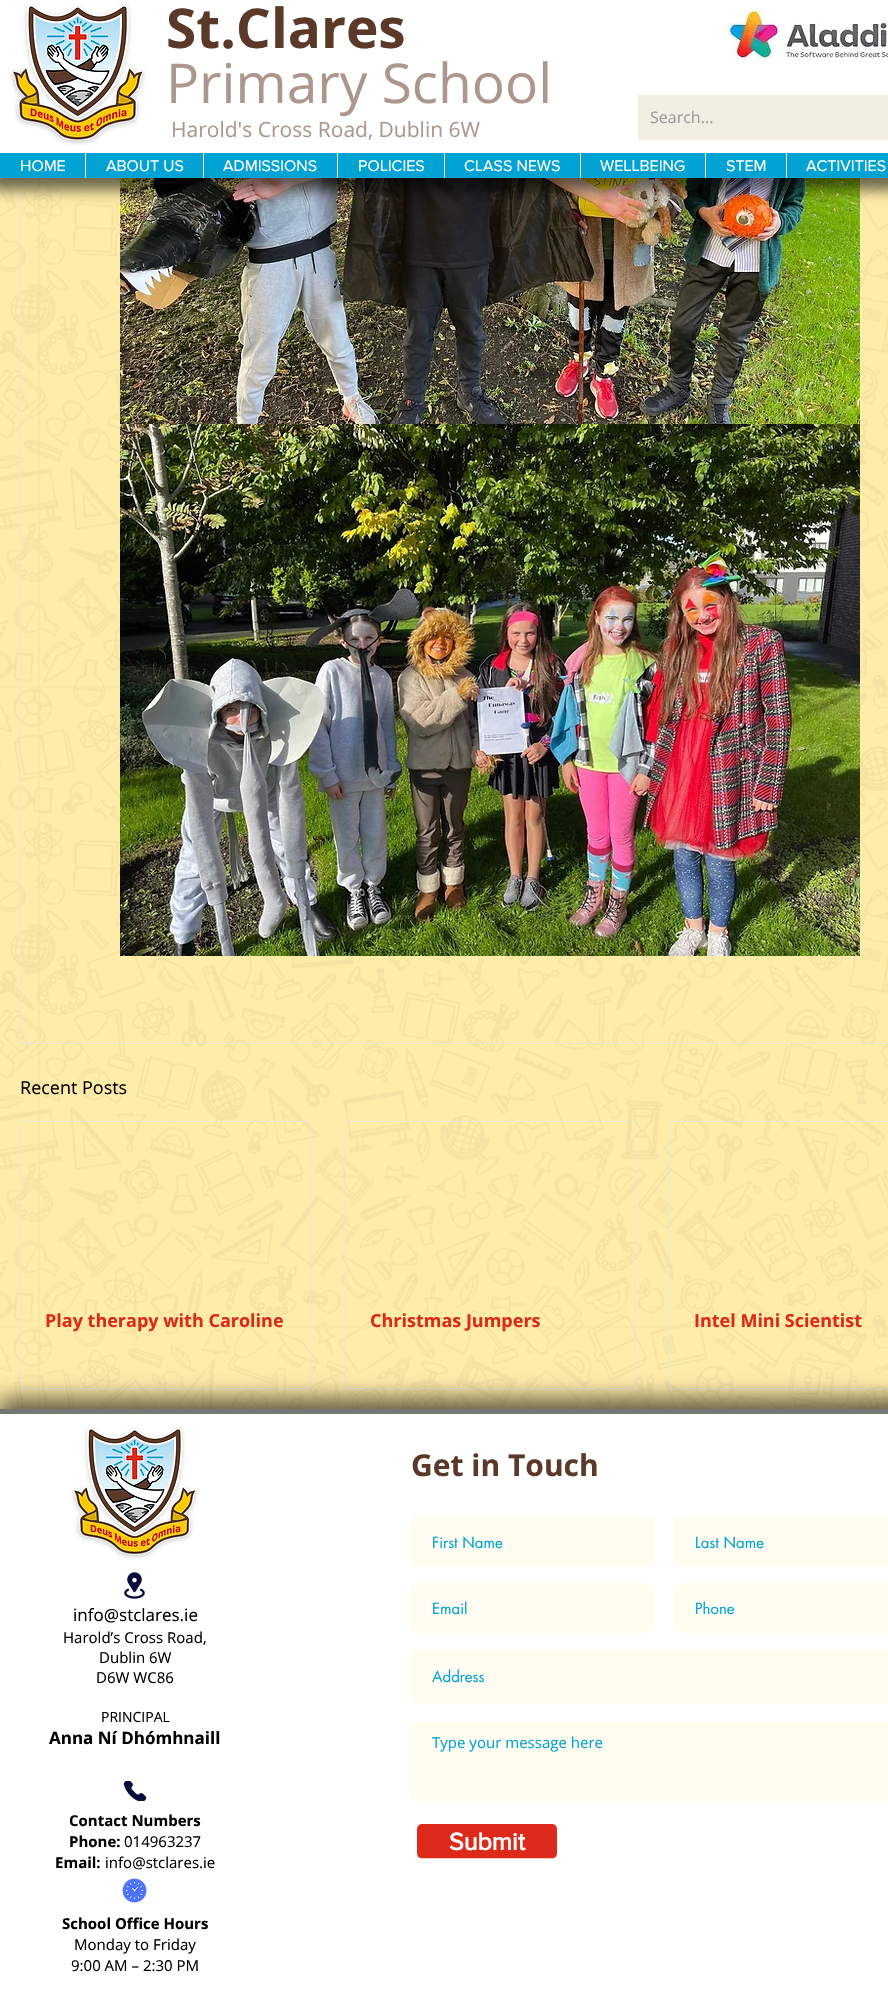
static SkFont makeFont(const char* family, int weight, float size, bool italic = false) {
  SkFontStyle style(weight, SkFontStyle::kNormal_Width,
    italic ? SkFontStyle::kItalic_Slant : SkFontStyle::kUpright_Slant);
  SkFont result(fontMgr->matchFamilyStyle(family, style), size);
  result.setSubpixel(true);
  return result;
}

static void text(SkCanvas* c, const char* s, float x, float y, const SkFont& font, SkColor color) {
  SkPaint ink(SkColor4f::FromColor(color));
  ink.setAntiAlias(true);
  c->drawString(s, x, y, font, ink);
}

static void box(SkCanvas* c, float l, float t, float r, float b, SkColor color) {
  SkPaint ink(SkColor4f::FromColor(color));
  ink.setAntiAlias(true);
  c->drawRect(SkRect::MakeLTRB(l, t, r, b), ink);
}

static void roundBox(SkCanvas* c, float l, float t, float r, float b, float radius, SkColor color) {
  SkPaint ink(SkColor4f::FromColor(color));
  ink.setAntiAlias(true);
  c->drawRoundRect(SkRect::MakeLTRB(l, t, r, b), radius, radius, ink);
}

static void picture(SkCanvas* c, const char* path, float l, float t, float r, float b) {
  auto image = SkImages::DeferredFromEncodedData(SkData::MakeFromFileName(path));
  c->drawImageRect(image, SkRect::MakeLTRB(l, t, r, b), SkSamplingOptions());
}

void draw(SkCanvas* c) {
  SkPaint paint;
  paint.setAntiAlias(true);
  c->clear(0xfffeeca9);
  picture(c, "img_09.png", 0, 178, 888, 1409);
  paint.setStyle(SkPaint::kStroke_Style);
  paint.setStrokeWidth(1);
  paint.setColor(0xbfe8e6e6);
  c->drawRect(SkRect::MakeLTRB(20.5f, -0.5f, 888.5f, 1043.5f), paint);
  picture(c, "img_03.png", 120, 178, 860, 424);
  paint.setStyle(SkPaint::kFill_Style);
  paint.setColor(0x8f000000);
  paint.setMaskFilter(SkMaskFilter::MakeBlur(kNormal_SkBlurStyle, 6.5f));
  c->drawRect(SkRect::MakeLTRB(-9, -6, 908, 190), paint);
  paint.setMaskFilter(nullptr);
  box(c, 0, 0, 888, 153, 0xffffffff);
  picture(c, "img_01.png", 9, 4, 146, 146);
  SkFont face1 = makeFont("Open Sans", 700, 55);
  text(c, "St.Clares", 166, 48, face1, 0xff5a3929);
  SkFont face2 = makeFont("Open Sans", 400, 55);
  text(c, "Primary School", 166, 103, face2, 0xffad978d);
  picture(c, "img_02.png", 723, 10, 888, 62);
  box(c, 638, 95, 888, 140, 0xfff2eee4);
  SkFont face3 = makeFont("Open Sans", 400, 16);
  text(c, "Search...", 650, 123, face3, 0xff999999);
  SkFont face4 = makeFont("Open Sans", 400, 21);
  text(c, "Harold's Cross Road, Dublin 6W", 171, 137, face4, 0xffad978d);
  box(c, 0, 153, 888, 178, 0xff00a3d3);
  SkFont face5 = makeFont("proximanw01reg", 400, 16);
  text(c, "HOME", 20, 171, face5, 0xffffffff);
  box(c, 85, 153, 86, 178, 0xffffffff);
  text(c, "ABOUT US", 106, 171, face5, 0xffffffff);
  box(c, 203, 153, 204, 178, 0xffffffff);
  text(c, "ADMISSIONS", 223, 171, face5, 0xffffffff);
  box(c, 337, 153, 338, 178, 0xffffffff);
  text(c, "POLICIES", 358, 171, face5, 0xffffffff);
  box(c, 444, 153, 445, 178, 0xffffffff);
  text(c, "CLASS NEWS", 464, 171, face5, 0xffffffff);
  box(c, 580, 153, 581, 178, 0xffffffff);
  text(c, "WELLBEING", 600, 171, face5, 0xffffffff);
  box(c, 705, 153, 706, 178, 0xffffffff);
  text(c, "STEM", 726, 171, face5, 0xffffffff);
  box(c, 786, 153, 787, 178, 0xffffffff);
  text(c, "ACTIVITIES", 806, 171, face5, 0xffffffff);
  picture(c, "img_04.png", 120, 424, 860, 956);
  SkFont face6 = makeFont("Open Sans", 400, 18);
  text(c, "Recent Posts", 20, 1094, face6, 0xff000000);
  paint.setStyle(SkPaint::kStroke_Style);
  paint.setColor(0xbfe8e6e6);
  c->drawRect(SkRect::MakeLTRB(20.5f, 1121.5f, 310.5f, 1388.5f), paint);
  SkFont face7 = makeFont("Open Sans", 700, 18);
  text(c, "Play therapy with Caroline", 45, 1327, face7, 0xffdc291a);
  c->drawRect(SkRect::MakeLTRB(345.5f, 1121.5f, 634.5f, 1388.5f), paint);
  text(c, "Christmas Jumpers", 370, 1327, face7, 0xffdc291a);
  c->drawRect(SkRect::MakeLTRB(669.5f, 1121.5f, 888.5f, 1388.5f), paint);
  text(c, "Intel Mini Scientist", 694, 1327, face7, 0xffdc291a);
  paint.setStyle(SkPaint::kFill_Style);
  paint.setColor(0x99000000);
  paint.setMaskFilter(SkMaskFilter::MakeBlur(kNormal_SkBlurStyle, 10.5f));
  c->drawRect(SkRect::MakeLTRB(-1, 1398, 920, 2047), paint);
  paint.setMaskFilter(nullptr);
  box(c, 0, 1414, 888, 2015, 0xffffffff);
  box(c, 0, 1409, 888, 1414, 0xff757575);
  picture(c, "img_05.png", 71, 1426, 199, 1560);
  SkFont face8 = makeFont("Open Sans", 700, 30);
  text(c, "Get in Touch", 411, 1476, face8, 0xff5a3929);
  roundBox(c, 410, 1517, 655, 1567, 7, 0xfffffcf2);
  SkFont face9 = makeFont("futura", 400, 15);
  text(c, "First Name", 432, 1548, face9, 0xff00a3d3);
  roundBox(c, 673, 1517, 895, 1567, 7, 0xfffffcf2);
  text(c, "Last Name", 695, 1548, face9, 0xff00a3d3);
  roundBox(c, 410, 1583, 655, 1633, 7, 0xfffffcf2);
  text(c, "Email", 432, 1614, face9, 0xff00a3d3);
  roundBox(c, 673, 1583, 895, 1633, 7, 0xfffffcf2);
  text(c, "Phone", 695, 1614, face9, 0xff00a3d3);
  roundBox(c, 410, 1649, 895, 1704, 7, 0xfffffcf2);
  text(c, "Address", 432, 1682, face9, 0xff00a3d3);
  roundBox(c, 410, 1721, 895, 1801, 7, 0xfffffcf0);
  SkFont face10 = makeFont("Open Sans", 400, 15);
  text(c, "Type your message here", 432, 1748, face10, 0xff00a3d3);
  roundBox(c, 417, 1824, 557, 1859, 5, 0xffdc291a);
  paint.setColor(0xbfffffff);
  c->drawPath(SkPathBuilder().moveTo(417, 1853).lineTo(417, 1854).cubicTo(417, 1857, 419, 1859, 422, 1859).lineTo(552, 1859).cubicTo(555, 1859, 557, 1857, 557, 1854).lineTo(557, 1853).cubicTo(557, 1856, 555, 1858, 552, 1858).lineTo(422, 1858).cubicTo(419, 1858, 417, 1856, 417, 1853).close().detach(), paint);
  SkFont face11 = makeFont("proximanw01reg", 700, 25);
  text(c, "Submit", 449, 1850, face11, 0xffffffff);
  picture(c, "img_06.png", 124, 1572, 145, 1599);
  SkFont face12 = makeFont("Open Sans", 400, 17);
  text(c, "info@stclares.ie", 73, 1621, face12, 0xff000000);
  text(c, "Harold’s Cross Road,", 63, 1643, face10, 0xff000000);
  text(c, "Dublin 6W", 99, 1663, face10, 0xff000000);
  text(c, "D6W WC86", 96, 1683, face10, 0xff000000);
  SkFont face13 = makeFont("Open Sans", 400, 14);
  text(c, "PRINCIPAL", 101, 1722, face13, 0xff000000);
  SkFont face14 = makeFont("Open Sans", 700, 17);
  text(c, "Anna Ní Dhómhnaill", 49, 1744, face14, 0xff000000);
  SkFont face15 = makeFont("Open Sans", 700, 15);
  text(c, "Contact Numbers", 69, 1826, face15, 0xff000000);
  text(c, "Phone:", 69, 1847, face15, 0xff000000);
  text(c, "014963237", 124, 1847, face10, 0xff000000);
  text(c, "Email:", 55, 1868, face15, 0xff000000);
  text(c, "info@stclares.ie", 105, 1868, face10, 0xff000000);
  text(c, "School Office Hours", 62, 1929, face15, 0xff000000);
  text(c, "Monday to Friday", 74, 1950, face10, 0xff000000);
  text(c, "9:00 AM – 2:30 PM", 71, 1971, face10, 0xff000000);
  picture(c, "img_07.png", 123, 1781, 147, 1801);
  picture(c, "img_08.png", 122, 1878, 147, 1903);
}
